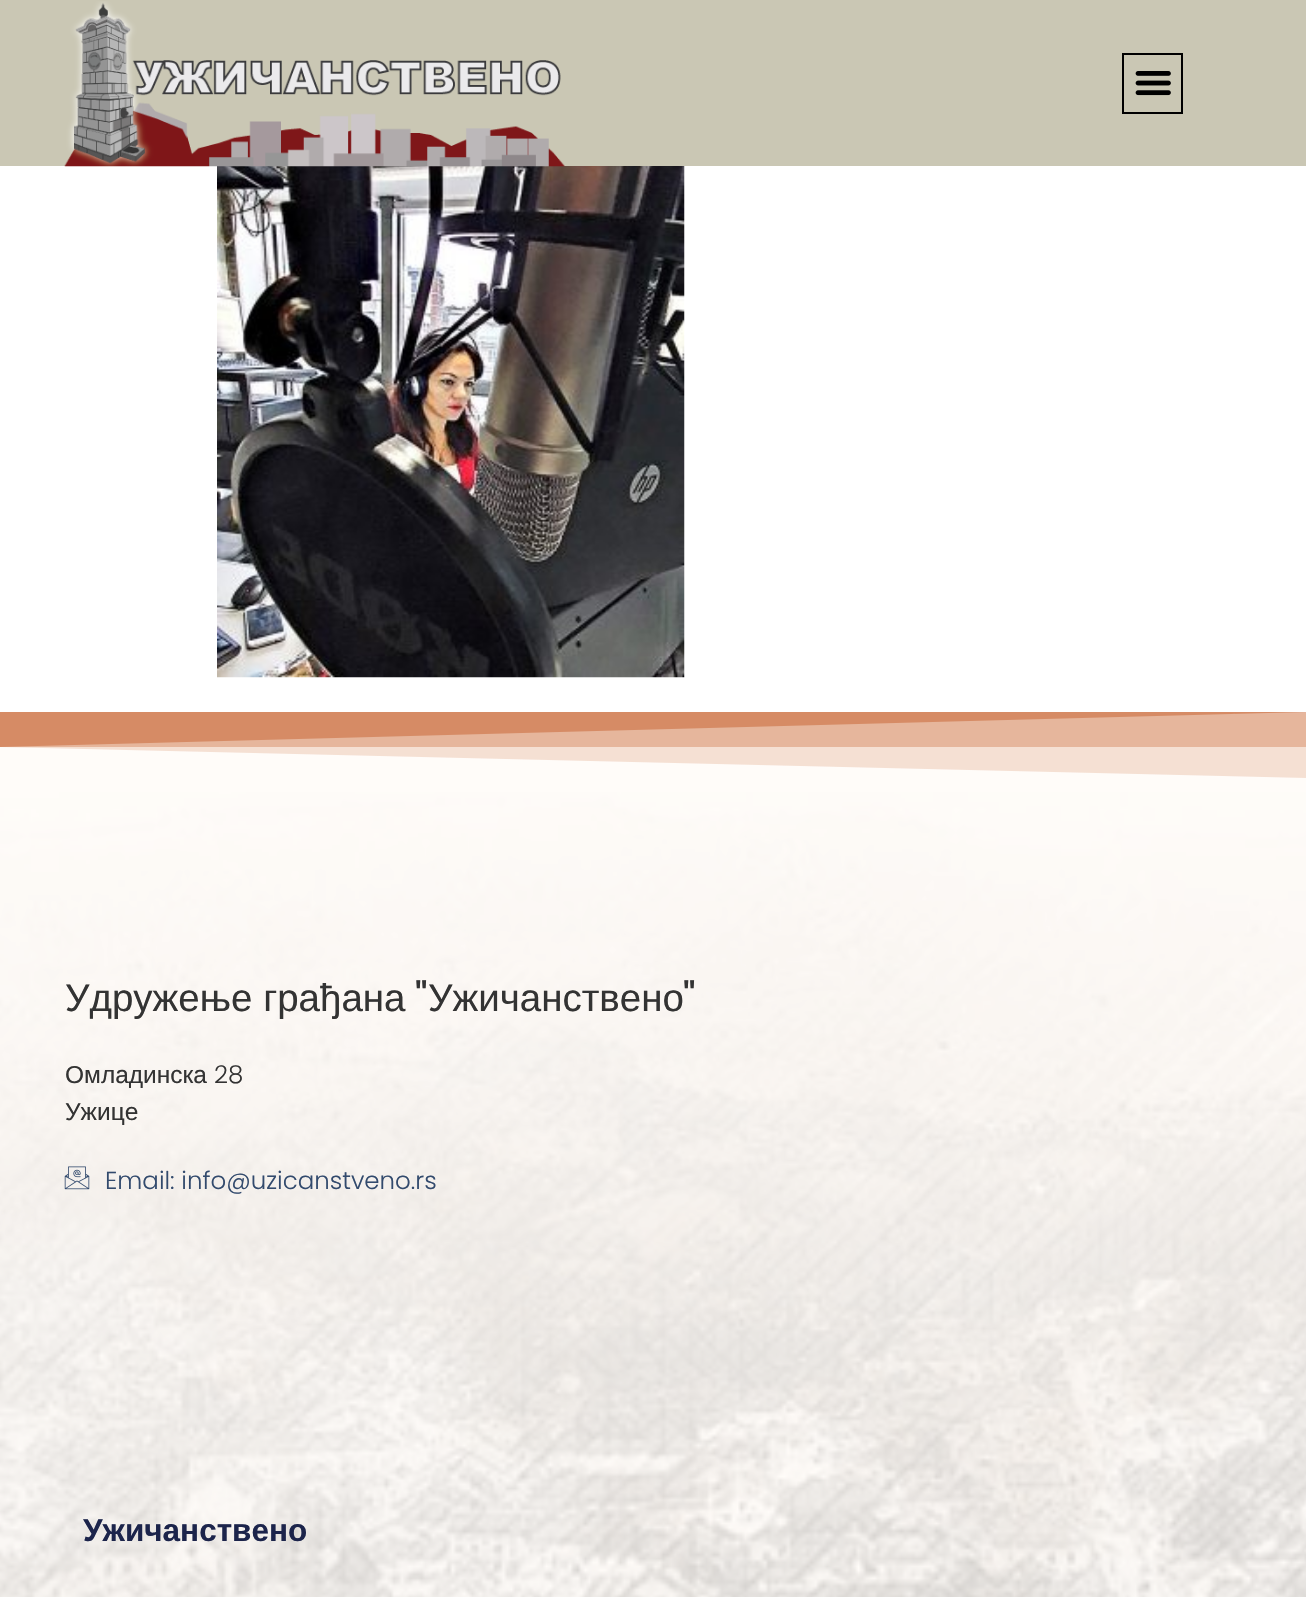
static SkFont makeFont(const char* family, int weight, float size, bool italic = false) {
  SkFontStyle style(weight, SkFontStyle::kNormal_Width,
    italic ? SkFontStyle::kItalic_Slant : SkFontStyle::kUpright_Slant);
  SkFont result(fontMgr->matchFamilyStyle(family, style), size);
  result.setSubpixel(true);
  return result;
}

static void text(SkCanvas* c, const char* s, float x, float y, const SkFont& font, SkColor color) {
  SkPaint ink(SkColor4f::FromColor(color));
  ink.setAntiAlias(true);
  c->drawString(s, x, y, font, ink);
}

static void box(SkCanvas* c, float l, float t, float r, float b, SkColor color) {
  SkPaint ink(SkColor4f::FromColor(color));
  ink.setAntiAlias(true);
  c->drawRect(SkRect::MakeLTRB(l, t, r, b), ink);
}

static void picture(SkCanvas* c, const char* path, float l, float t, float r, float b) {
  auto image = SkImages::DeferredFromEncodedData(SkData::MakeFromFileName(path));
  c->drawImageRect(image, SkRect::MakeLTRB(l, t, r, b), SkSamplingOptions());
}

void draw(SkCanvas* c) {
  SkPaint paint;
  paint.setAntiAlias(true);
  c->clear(0xffffffff);
  box(c, 1235, 712, 1306, 714, 0xffebc5b2);
  box(c, 0, 747, 1306, 792, 0xfffffcf9);
  box(c, 0, 714, 1306, 747, 0xffebc4af);
  box(c, 0, 0, 1306, 166, 0xffcac7b4);
  picture(c, "img_03.png", 217, 166, 685, 678);
  picture(c, "img_01.png", 64, 1, 565, 167);
  paint.setStyle(SkPaint::kStroke_Style);
  paint.setStrokeWidth(2);
  paint.setColor(0xff000000);
  c->drawRect(SkRect::MakeLTRB(1123, 54, 1182, 113), paint);
  picture(c, "img_02.png", 1135, 71, 1171, 96);
  picture(c, "img_04.png", 0, 792, 1306, 1597);
  paint.setStyle(SkPaint::kFill_Style);
  paint.setColor(0xffd68b65);
  c->drawPath(SkPathBuilder().moveTo(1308, 712).lineTo(-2, 712).lineTo(-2, 747).close().detach(), paint);
  paint.setColor(0x40d68b65);
  c->drawPath(SkPathBuilder().moveTo(-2, 712).lineTo(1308, 712).lineTo(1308, 778).lineTo(-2, 747).close().detach(), paint);
  SkFont face1 = makeFont("Liberation Sans", 400, 38.5f);
  text(c, "Удружење грађана", 65, 1011, face1, 0xff333333);
  SkFont face2 = makeFont("Poppins", 500, 38.5f);
  text(c, "\"", 415, 1011, face2, 0xff333333);
  text(c, "Ужичанствено", 428, 1011, face1, 0xff333333);
  text(c, "\"", 683, 1011, face2, 0xff333333);
  SkFont face3 = makeFont("Liberation Sans", 400, 24.5f);
  text(c, "Омладинска", 65, 1083, face3, 0xff333333);
  SkFont face4 = makeFont("Poppins", 300, 24.5f);
  text(c, "28", 214, 1083, face4, 0xff333333);
  text(c, "Ужице", 65, 1120, face3, 0xff333333);
  picture(c, "img_05.png", 64, 1166, 90, 1190);
  text(c, "Email: info@uzicanstveno.rs", 105, 1189, face4, 0xff324a6d);
  SkFont face5 = makeFont("Liberation Sans", 700, 31.5f);
  text(c, "Ужичанствено", 83, 1541, face5, 0xff1c244b);
}
